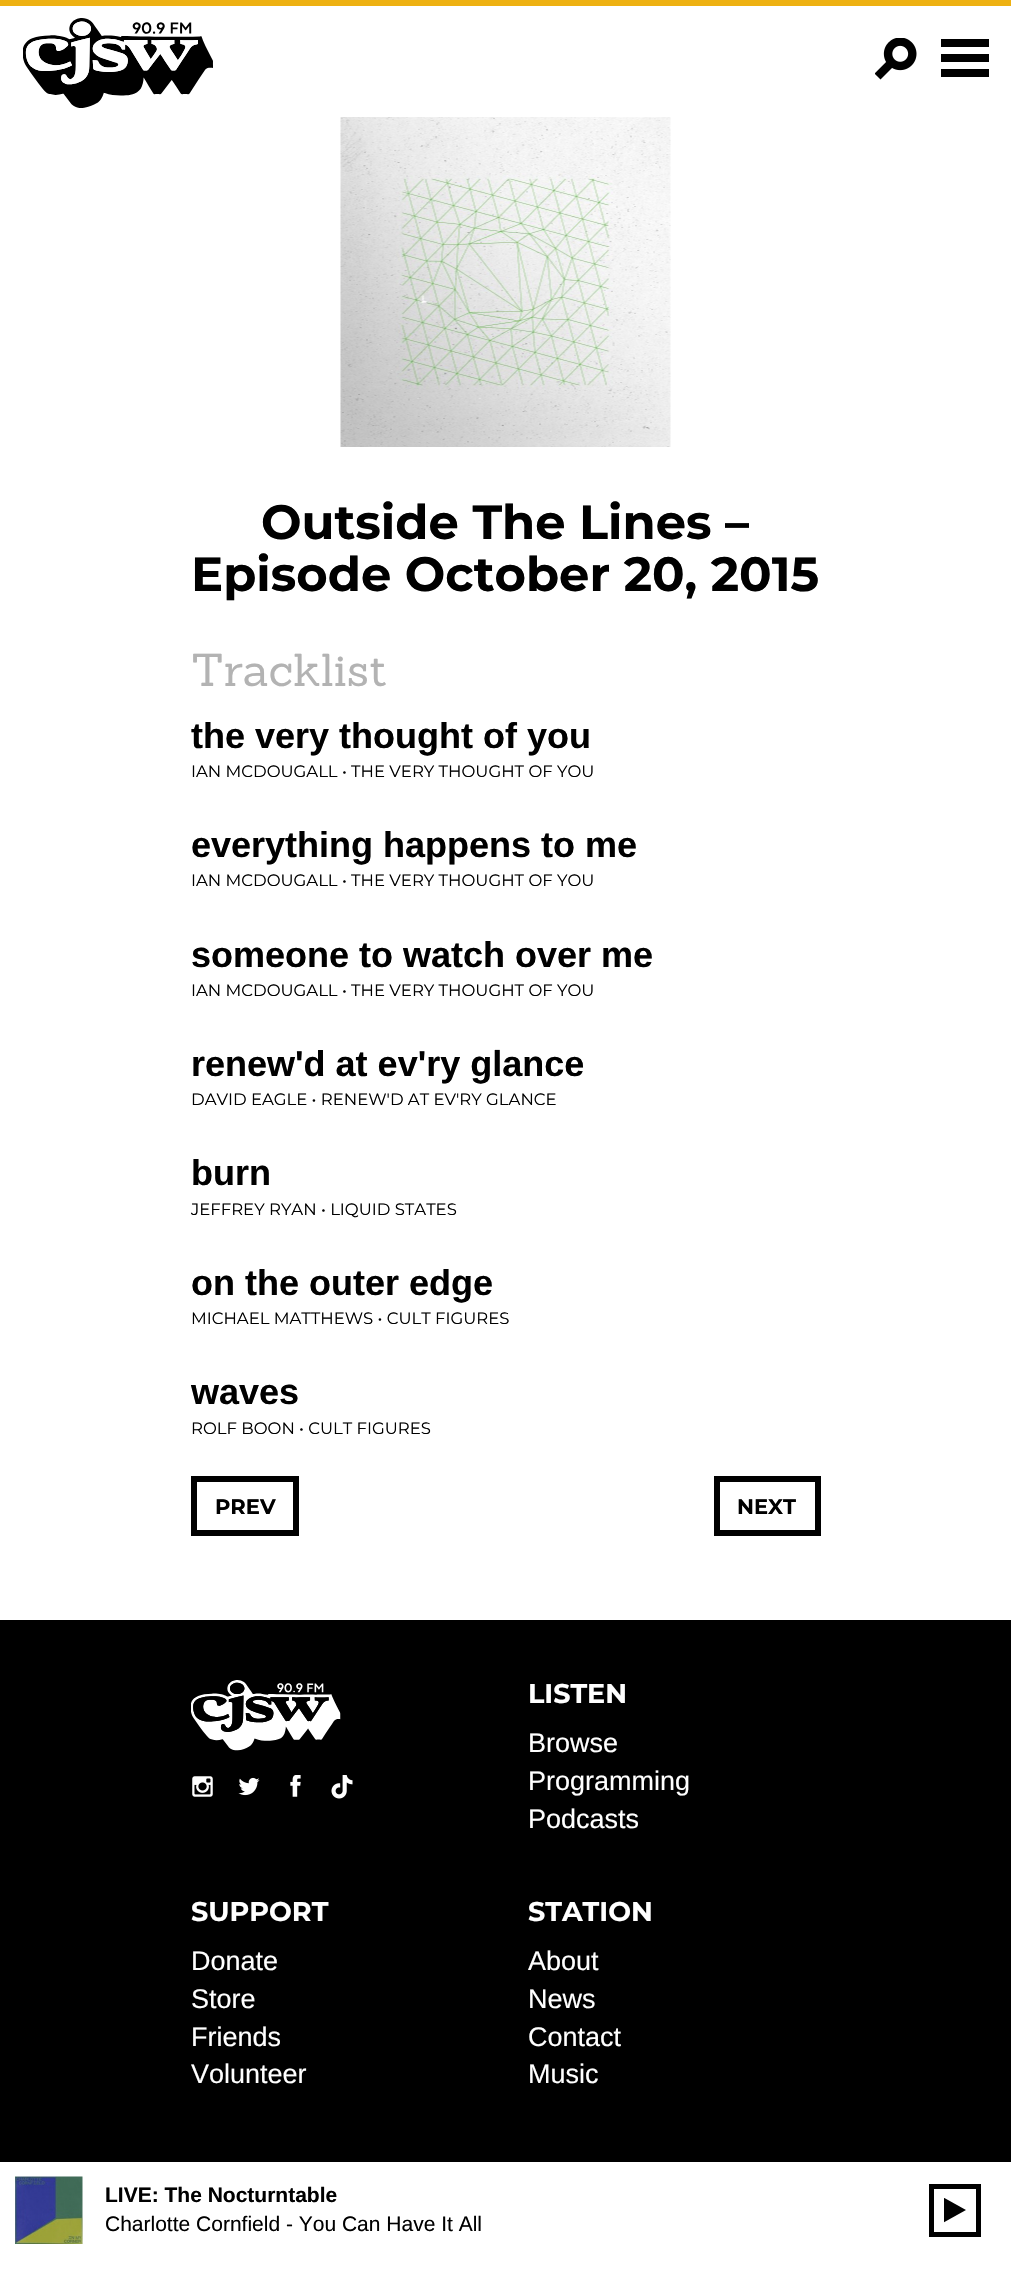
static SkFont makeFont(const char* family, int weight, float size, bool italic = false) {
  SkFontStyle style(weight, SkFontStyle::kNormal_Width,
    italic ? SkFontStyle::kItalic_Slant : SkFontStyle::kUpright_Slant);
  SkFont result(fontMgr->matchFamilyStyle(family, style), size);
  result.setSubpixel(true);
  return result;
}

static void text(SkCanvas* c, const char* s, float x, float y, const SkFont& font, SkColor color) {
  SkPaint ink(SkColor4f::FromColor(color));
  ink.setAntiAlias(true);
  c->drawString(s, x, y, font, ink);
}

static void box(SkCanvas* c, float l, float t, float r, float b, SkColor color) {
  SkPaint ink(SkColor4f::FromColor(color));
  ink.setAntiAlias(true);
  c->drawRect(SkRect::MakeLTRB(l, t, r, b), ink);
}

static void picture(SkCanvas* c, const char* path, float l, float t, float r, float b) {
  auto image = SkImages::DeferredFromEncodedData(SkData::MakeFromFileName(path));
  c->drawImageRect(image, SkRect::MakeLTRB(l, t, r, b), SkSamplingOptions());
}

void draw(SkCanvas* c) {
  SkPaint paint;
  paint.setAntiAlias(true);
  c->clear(0xffffffff);
  box(c, 0, 0, 1011, 6, 0xffeeb111);
  picture(c, "img_01.png", 23, 18, 213, 108);
  picture(c, "img_02.png", 875, 38, 917, 80);
  box(c, 941, 39, 989, 47, 0xff000000);
  box(c, 941, 54, 989, 62, 0xff000000);
  box(c, 941, 69, 989, 77, 0xff000000);
  picture(c, "img_03.png", 340, 117, 671, 447);
  SkFont face1 = makeFont("Montserrat", 700, 48);
  text(c, "Outside The Lines –", 261, 539, face1, 0xff000000);
  text(c, "Episode October 20, 2015", 191, 591, face1, 0xff000000);
  SkFont face2 = makeFont("Sanchez", 400, 45);
  text(c, "Tracklist", 191, 686, face2, 0xffb3b3b3);
  SkFont face3 = makeFont("Arimo", 700, 36);
  text(c, "the very thought of you", 191, 748, face3, 0xff000000);
  SkFont face4 = makeFont("Montserrat", 400, 16.5f);
  text(c, "IAN MCDOUGALL • THE VERY THOUGHT OF YOU", 191, 777, face4, 0xff000000);
  text(c, "everything happens to me", 191, 857, face3, 0xff000000);
  text(c, "IAN MCDOUGALL • THE VERY THOUGHT OF YOU", 191, 886, face4, 0xff000000);
  text(c, "someone to watch over me", 191, 967, face3, 0xff000000);
  text(c, "IAN MCDOUGALL • THE VERY THOUGHT OF YOU", 191, 996, face4, 0xff000000);
  text(c, "renew'd at ev'ry glance", 191, 1076, face3, 0xff000000);
  text(c, "DAVID EAGLE • RENEW'D AT EV'RY GLANCE", 191, 1105, face4, 0xff000000);
  text(c, "burn", 191, 1185, face3, 0xff000000);
  text(c, "JEFFREY RYAN • LIQUID STATES", 191, 1215, face4, 0xff000000);
  text(c, "on the outer edge", 191, 1295, face3, 0xff000000);
  text(c, "MICHAEL MATTHEWS • CULT FIGURES", 191, 1324, face4, 0xff000000);
  text(c, "waves", 191, 1404, face3, 0xff000000);
  text(c, "ROLF BOON • CULT FIGURES", 191, 1434, face4, 0xff000000);
  paint.setStyle(SkPaint::kStroke_Style);
  paint.setStrokeWidth(6);
  paint.setColor(0xff000000);
  c->drawRect(SkRect::MakeLTRB(194, 1479, 296, 1533), paint);
  SkFont face5 = makeFont("Montserrat", 700, 21);
  text(c, "PREV", 215, 1514, face5, 0xff000000);
  c->drawRect(SkRect::MakeLTRB(717, 1479, 818, 1533), paint);
  text(c, "NEXT", 737, 1514, face5, 0xff000000);
  box(c, 0, 1620, 1011, 2162, 0xff000000);
  picture(c, "img_04.png", 191, 1680, 341, 1751);
  picture(c, "img_05.png", 192, 1776, 213, 1797);
  picture(c, "img_06.png", 238, 1777, 260, 1796);
  picture(c, "img_07.png", 290, 1775, 301, 1797);
  picture(c, "img_08.png", 331, 1775, 353, 1799);
  SkFont face6 = makeFont("Montserrat", 700, 27);
  text(c, "LISTEN", 528, 1703, face6, 0xffffffff);
  SkFont face7 = makeFont("Arimo", 400, 27);
  text(c, "Browse", 528, 1752, face7, 0xffffffff);
  text(c, "Programming", 528, 1790, face7, 0xffffffff);
  text(c, "Podcasts", 528, 1828, face7, 0xffffffff);
  text(c, "SUPPORT", 191, 1921, face6, 0xffffffff);
  text(c, "Donate", 191, 1970, face7, 0xffffffff);
  text(c, "Store", 191, 2008, face7, 0xffffffff);
  text(c, "Friends", 191, 2046, face7, 0xffffffff);
  text(c, "Volunteer", 191, 2083, face7, 0xffffffff);
  text(c, "STATION", 528, 1921, face6, 0xffffffff);
  text(c, "About", 528, 1970, face7, 0xffffffff);
  text(c, "News", 528, 2008, face7, 0xffffffff);
  text(c, "Contact", 528, 2046, face7, 0xffffffff);
  text(c, "Music", 528, 2083, face7, 0xffffffff);
  picture(c, "img_09.png", 15, 2176, 83, 2244);
  SkFont face8 = makeFont("Arimo", 700, 21);
  text(c, "LIVE: The Nocturntable", 105, 2202, face8, 0xff000000);
  SkFont face9 = makeFont("Arimo", 400, 21);
  text(c, "Charlotte Cornfield - You Can Have It All", 105, 2231, face9, 0xff000000);
  c->save();
  c->clipRect(SkRect::MakeLTRB(944, 2198, 966, 2223));
  paint.setStyle(SkPaint::kFill_Style);
  paint.setColor(0xff010101);
  c->drawPath(SkPathBuilder().moveTo(943.5f, 2197.5f).lineTo(966, 2210).lineTo(943.5f, 2222.5f).close().detach(), paint);
  c->restore();
  paint.setStyle(SkPaint::kStroke_Style);
  paint.setStrokeWidth(5);
  paint.setColor(0xff000000);
  c->drawRect(SkRect::MakeLTRB(931.5f, 2186.5f, 978.5f, 2234.5f), paint);
}
